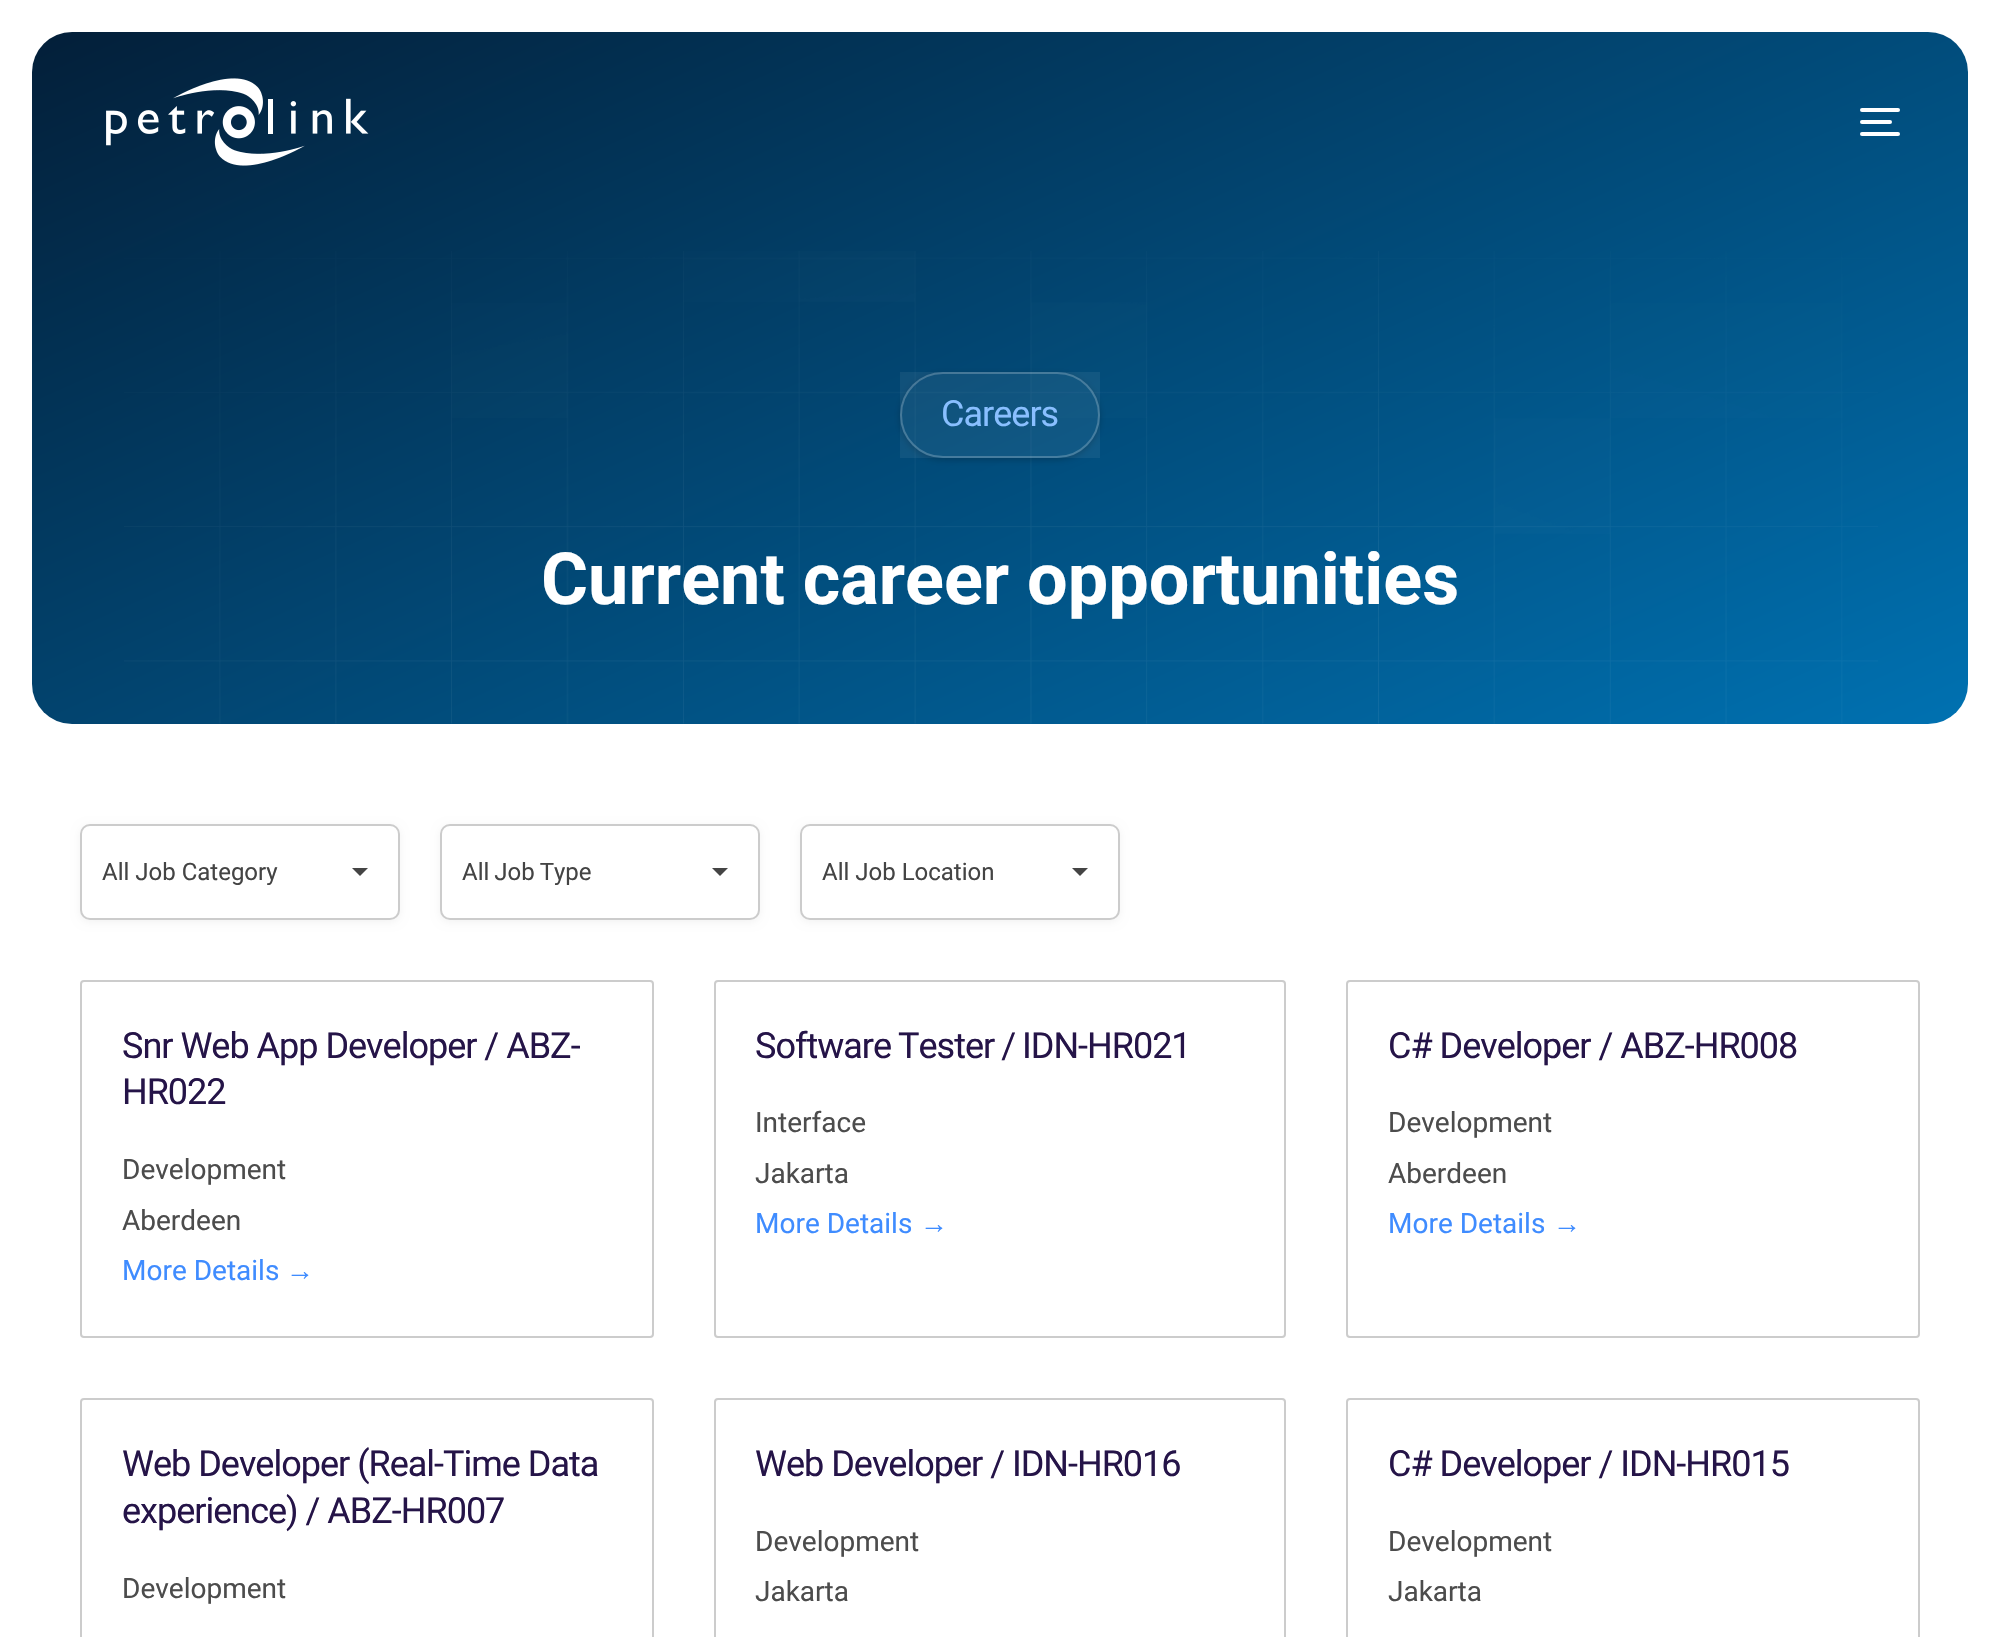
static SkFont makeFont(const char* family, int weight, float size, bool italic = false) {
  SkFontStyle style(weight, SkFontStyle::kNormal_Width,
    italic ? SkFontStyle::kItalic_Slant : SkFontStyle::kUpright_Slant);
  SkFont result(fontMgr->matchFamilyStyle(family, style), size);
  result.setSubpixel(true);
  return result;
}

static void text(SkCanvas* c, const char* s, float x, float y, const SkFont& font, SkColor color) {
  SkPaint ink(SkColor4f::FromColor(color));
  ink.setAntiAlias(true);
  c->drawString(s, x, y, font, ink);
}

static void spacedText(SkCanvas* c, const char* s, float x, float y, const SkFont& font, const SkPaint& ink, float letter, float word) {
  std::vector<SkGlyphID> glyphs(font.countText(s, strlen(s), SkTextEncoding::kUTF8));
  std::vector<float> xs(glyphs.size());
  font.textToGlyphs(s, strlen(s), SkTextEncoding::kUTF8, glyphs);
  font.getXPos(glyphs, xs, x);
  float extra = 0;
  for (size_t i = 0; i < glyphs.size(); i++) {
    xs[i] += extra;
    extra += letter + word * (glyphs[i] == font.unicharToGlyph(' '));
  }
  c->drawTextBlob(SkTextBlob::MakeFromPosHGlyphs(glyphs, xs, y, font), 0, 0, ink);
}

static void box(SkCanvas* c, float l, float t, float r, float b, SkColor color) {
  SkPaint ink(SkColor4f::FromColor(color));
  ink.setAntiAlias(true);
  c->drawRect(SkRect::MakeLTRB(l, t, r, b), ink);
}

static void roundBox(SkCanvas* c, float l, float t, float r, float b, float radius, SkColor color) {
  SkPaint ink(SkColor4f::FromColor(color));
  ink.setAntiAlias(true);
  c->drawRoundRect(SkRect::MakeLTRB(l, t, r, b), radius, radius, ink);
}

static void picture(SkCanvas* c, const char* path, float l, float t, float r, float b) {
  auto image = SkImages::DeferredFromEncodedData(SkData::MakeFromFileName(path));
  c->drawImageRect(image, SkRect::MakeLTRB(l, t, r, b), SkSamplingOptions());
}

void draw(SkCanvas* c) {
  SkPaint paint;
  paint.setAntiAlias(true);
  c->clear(0xffffffff);
  {
    const SkColor colors[] = {0xff031f39, 0xff0071b1};
    const float stops[] = {0, 1};
    const SkPoint ends[] = {{711, -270}, {1289, 1026}};
    paint.setShader(SkGradientShader::MakeLinear(ends, colors, stops, 2, SkTileMode::kClamp));
    paint.setAlpha(255);
  }
  c->drawRoundRect(SkRect::MakeLTRB(32, 32, 1968, 724), 40, 40, paint);
  picture(c, "img_01.png", 106, 78, 369, 166);
  roundBox(c, 1860, 108, 1900, 112, 2, 0xffffffff);
  roundBox(c, 1860, 120, 1892, 124, 2, 0xffffffff);
  roundBox(c, 1860, 132, 1900, 136, 2, 0xffffffff);
  picture(c, "img_02.png", 124, 251, 1878, 724);
  c->save();
  c->clipPath(SkPathBuilder(SkPathFillType::kEvenOdd).moveTo(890, 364).lineTo(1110, 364).lineTo(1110, 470).lineTo(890, 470).close().moveTo(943, 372).lineTo(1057, 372).cubicTo(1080.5f, 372, 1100, 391.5f, 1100, 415).cubicTo(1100, 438.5f, 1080.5f, 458, 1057, 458).lineTo(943, 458).cubicTo(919.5f, 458, 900, 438.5f, 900, 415).cubicTo(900, 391.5f, 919.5f, 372, 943, 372).close().detach(), true);
  paint.setShader(nullptr);
  paint.setColor(0x33000000);
  paint.setMaskFilter(SkMaskFilter::MakeBlur(kNormal_SkBlurStyle, 3));
  c->drawRoundRect(SkRect::MakeLTRB(900, 374, 1100, 460), 43, 43, paint);
  paint.setMaskFilter(nullptr);
  c->restore();
  box(c, 900, 372, 1100, 458, 0x0fffffff);
  paint.setStyle(SkPaint::kStroke_Style);
  paint.setStrokeWidth(2);
  paint.setColor(0x38ffffff);
  c->drawRoundRect(SkRect::MakeLTRB(901, 373, 1099, 457), 42, 42, paint);
  SkFont face1 = makeFont("Roboto", 400, 36);
  paint.setStyle(SkPaint::kFill_Style);
  paint.setColor(0xff89bfff);
  spacedText(c, "Careers", 941, 426, face1, paint, -1, 0);
  SkFont face2 = makeFont("Roboto", 700, 72);
  text(c, "Current career opportunities", 541, 604, face2, 0xffffffff);
  paint.setColor(0x0d000000);
  paint.setMaskFilter(SkMaskFilter::MakeBlur(kNormal_SkBlurStyle, 4));
  c->drawRoundRect(SkRect::MakeLTRB(80, 826, 400, 922), 10, 10, paint);
  paint.setMaskFilter(nullptr);
  paint.setColor(0xffffffff);
  c->drawRoundRect(SkRect::MakeLTRB(81, 825, 399, 919), 9, 9, paint);
  paint.setStyle(SkPaint::kStroke_Style);
  paint.setColor(0xffcccccc);
  c->drawRoundRect(SkRect::MakeLTRB(81, 825, 399, 919), 9, 9, paint);
  SkFont face3 = makeFont("Roboto", 400, 24);
  text(c, "All Job Category", 102, 880, face3, 0xff444444);
  paint.setStyle(SkPaint::kFill_Style);
  paint.setColor(0xff444444);
  c->drawPath(SkPathBuilder().moveTo(352, 868).lineTo(368, 868).lineTo(360, 876).close().detach(), paint);
  paint.setColor(0x0d000000);
  paint.setMaskFilter(SkMaskFilter::MakeBlur(kNormal_SkBlurStyle, 4));
  c->drawRoundRect(SkRect::MakeLTRB(440, 826, 760, 922), 10, 10, paint);
  paint.setMaskFilter(nullptr);
  paint.setColor(0xffffffff);
  c->drawRoundRect(SkRect::MakeLTRB(441, 825, 759, 919), 9, 9, paint);
  paint.setStyle(SkPaint::kStroke_Style);
  paint.setColor(0xffcccccc);
  c->drawRoundRect(SkRect::MakeLTRB(441, 825, 759, 919), 9, 9, paint);
  paint.setStyle(SkPaint::kFill_Style);
  paint.setColor(0xff444444);
  spacedText(c, "All Job Type", 462, 880, face3, paint, 0, -1);
  c->drawPath(SkPathBuilder().moveTo(712, 868).lineTo(728, 868).lineTo(720, 876).close().detach(), paint);
  paint.setColor(0x0d000000);
  paint.setMaskFilter(SkMaskFilter::MakeBlur(kNormal_SkBlurStyle, 4));
  c->drawRoundRect(SkRect::MakeLTRB(800, 826, 1120, 922), 10, 10, paint);
  paint.setMaskFilter(nullptr);
  paint.setColor(0xffffffff);
  c->drawRoundRect(SkRect::MakeLTRB(801, 825, 1119, 919), 9, 9, paint);
  paint.setStyle(SkPaint::kStroke_Style);
  paint.setColor(0xffcccccc);
  c->drawRoundRect(SkRect::MakeLTRB(801, 825, 1119, 919), 9, 9, paint);
  text(c, "All Job Location", 822, 880, face3, 0xff444444);
  paint.setStyle(SkPaint::kFill_Style);
  paint.setColor(0xff444444);
  c->drawPath(SkPathBuilder().moveTo(1072, 868).lineTo(1088, 868).lineTo(1080, 876).close().detach(), paint);
  paint.setStyle(SkPaint::kStroke_Style);
  paint.setColor(0xffcccccc);
  c->drawRoundRect(SkRect::MakeLTRB(81, 981, 653, 1337), 3, 3, paint);
  paint.setStyle(SkPaint::kFill_Style);
  paint.setColor(0xff251448);
  spacedText(c, "Snr Web App Developer / ABZ-", 122, 1058, face1, paint, -1, 0);
  spacedText(c, "HR022", 122, 1104, face1, paint, -1, 0);
  SkFont face4 = makeFont("Roboto", 400, 28);
  text(c, "Development", 122, 1179, face4, 0xff4c4c4c);
  text(c, "Aberdeen", 122, 1230, face4, 0xff4c4c4c);
  text(c, "More Details", 122, 1280, face4, 0xff3f8cff);
  SkFont face5 = makeFont("Liberation Serif", 400, 28);
  text(c, "→", 286, 1280, face5, 0xff3f8cff);
  paint.setStyle(SkPaint::kStroke_Style);
  paint.setColor(0xffcccccc);
  c->drawRoundRect(SkRect::MakeLTRB(715, 981, 1285, 1337), 3, 3, paint);
  paint.setStyle(SkPaint::kFill_Style);
  paint.setColor(0xff251448);
  spacedText(c, "Software Tester / IDN-HR021", 755, 1058, face1, paint, -1, -1);
  text(c, "Interface", 755, 1132, face4, 0xff4c4c4c);
  text(c, "Jakarta", 755, 1183, face4, 0xff4c4c4c);
  text(c, "More Details", 755, 1233, face4, 0xff3f8cff);
  text(c, "→", 920, 1233, face5, 0xff3f8cff);
  paint.setStyle(SkPaint::kStroke_Style);
  paint.setColor(0xffcccccc);
  c->drawRoundRect(SkRect::MakeLTRB(1347, 981, 1919, 1337), 3, 3, paint);
  paint.setStyle(SkPaint::kFill_Style);
  paint.setColor(0xff251448);
  spacedText(c, "C# Developer / ABZ-HR008", 1388, 1058, face1, paint, -1, 0);
  text(c, "Development", 1388, 1132, face4, 0xff4c4c4c);
  text(c, "Aberdeen", 1388, 1183, face4, 0xff4c4c4c);
  text(c, "More Details", 1388, 1233, face4, 0xff3f8cff);
  text(c, "→", 1553, 1233, face5, 0xff3f8cff);
  paint.setStyle(SkPaint::kStroke_Style);
  paint.setColor(0xffcccccc);
  c->drawRoundRect(SkRect::MakeLTRB(81, 1399, 653, 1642), 3, 3, paint);
  paint.setStyle(SkPaint::kFill_Style);
  paint.setColor(0xff251448);
  spacedText(c, "Web Developer (Real-Time Data", 122, 1476, face1, paint, -1, 0);
  spacedText(c, "experience) / ABZ-HR007", 122, 1523, face1, paint, -1, 0);
  text(c, "Development", 122, 1598, face4, 0xff4c4c4c);
  paint.setStyle(SkPaint::kStroke_Style);
  paint.setColor(0xffcccccc);
  c->drawRoundRect(SkRect::MakeLTRB(715, 1399, 1285, 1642), 3, 3, paint);
  paint.setStyle(SkPaint::kFill_Style);
  paint.setColor(0xff251448);
  spacedText(c, "Web Developer / IDN-HR016", 755, 1476, face1, paint, -1, 0);
  text(c, "Development", 755, 1551, face4, 0xff4c4c4c);
  text(c, "Jakarta", 755, 1601, face4, 0xff4c4c4c);
  paint.setStyle(SkPaint::kStroke_Style);
  paint.setColor(0xffcccccc);
  c->drawRoundRect(SkRect::MakeLTRB(1347, 1399, 1919, 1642), 3, 3, paint);
  paint.setStyle(SkPaint::kFill_Style);
  paint.setColor(0xff251448);
  spacedText(c, "C# Developer / IDN-HR015", 1388, 1476, face1, paint, -1, 0);
  text(c, "Development", 1388, 1551, face4, 0xff4c4c4c);
  text(c, "Jakarta", 1388, 1601, face4, 0xff4c4c4c);
}
